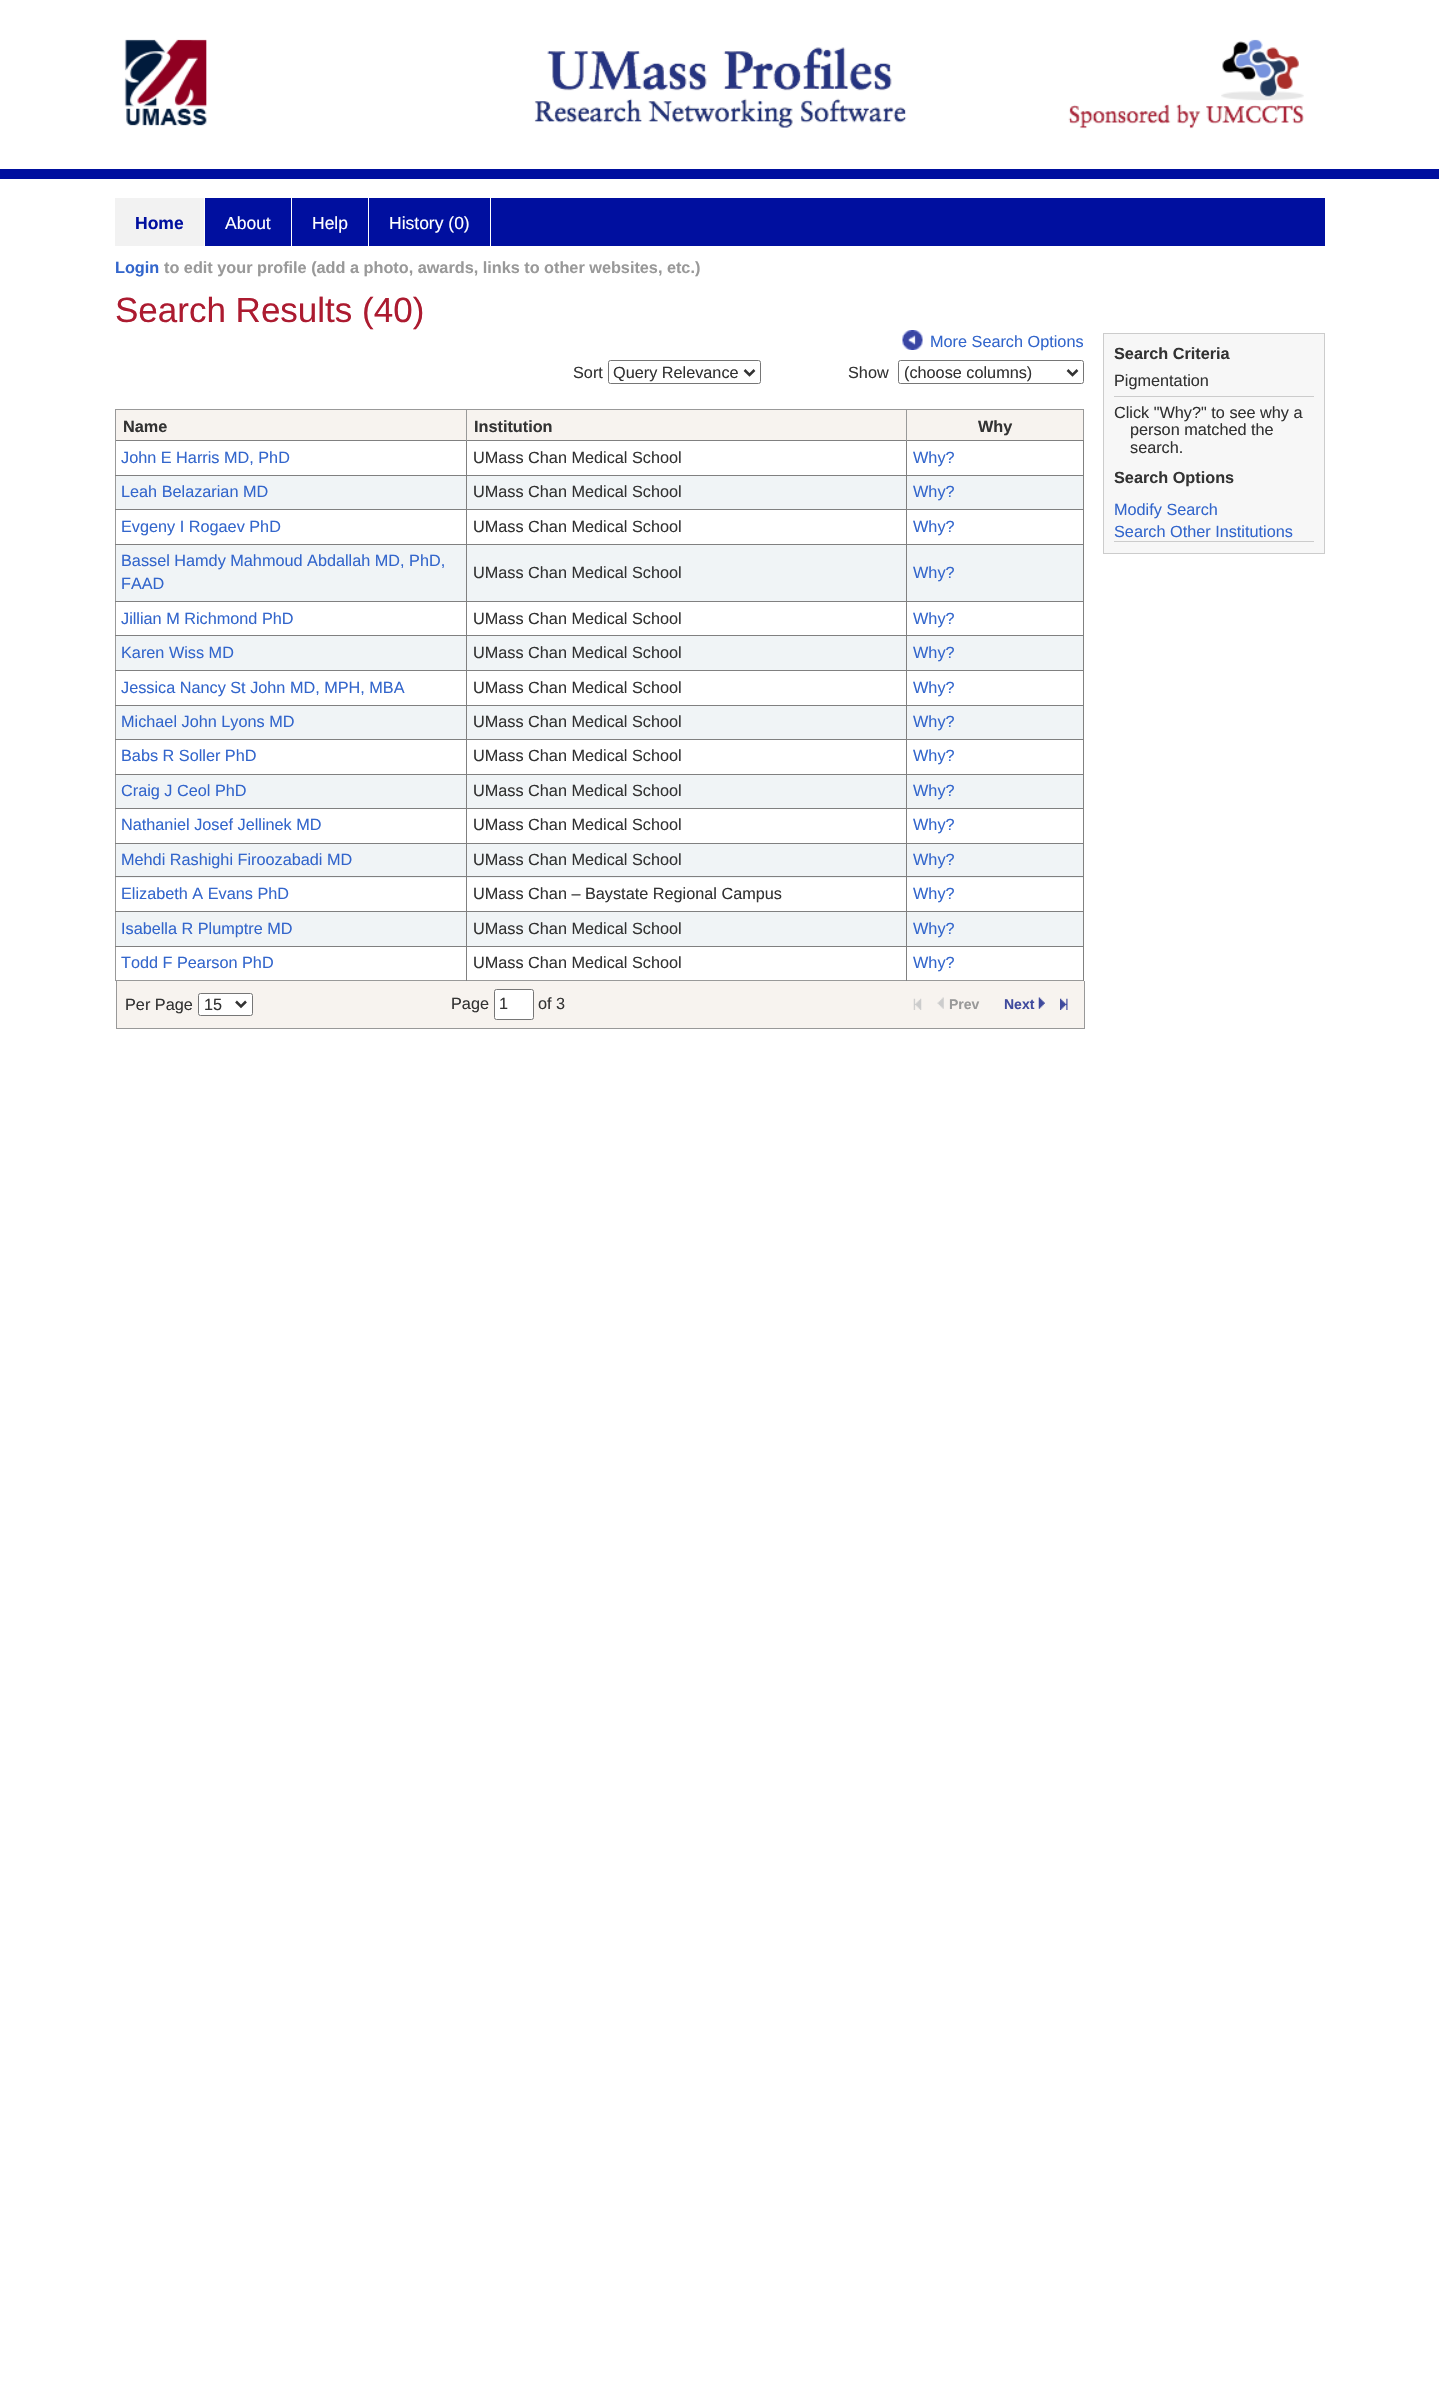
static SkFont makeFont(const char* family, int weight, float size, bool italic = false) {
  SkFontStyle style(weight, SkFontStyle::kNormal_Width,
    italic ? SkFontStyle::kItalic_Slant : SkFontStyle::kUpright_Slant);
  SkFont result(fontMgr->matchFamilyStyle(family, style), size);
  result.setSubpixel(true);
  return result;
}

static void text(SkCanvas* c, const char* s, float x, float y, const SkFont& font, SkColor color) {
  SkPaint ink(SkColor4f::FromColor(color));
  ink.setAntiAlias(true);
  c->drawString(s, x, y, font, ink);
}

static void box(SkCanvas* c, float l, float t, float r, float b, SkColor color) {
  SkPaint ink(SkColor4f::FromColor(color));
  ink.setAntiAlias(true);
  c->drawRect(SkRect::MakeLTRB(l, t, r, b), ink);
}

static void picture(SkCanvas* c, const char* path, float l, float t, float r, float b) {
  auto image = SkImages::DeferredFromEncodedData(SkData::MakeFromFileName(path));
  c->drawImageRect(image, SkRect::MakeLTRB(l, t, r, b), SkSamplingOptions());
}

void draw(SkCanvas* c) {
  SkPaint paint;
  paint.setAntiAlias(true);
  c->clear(0xffffffff);
  box(c, 0, 169, 1439, 179, 0xff000f9f);
  picture(c, "img_01.png", 124, 39, 1304, 129);
  box(c, 205, 198, 1325, 246, 0xff000f9f);
  box(c, 115, 198, 204, 246, 0xfff2f2f2);
  SkFont face1 = makeFont("Liberation Sans", 700, 17.5f);
  text(c, "Home", 135, 229, face1, 0xff000f9f);
  box(c, 291, 198, 292, 246, 0xffffffff);
  SkFont face2 = makeFont("Liberation Sans", 400, 17.5f);
  text(c, "About", 225, 229, face2, 0xffffffff);
  box(c, 368, 198, 369, 246, 0xffffffff);
  text(c, "Help", 312, 229, face2, 0xffffffff);
  box(c, 490, 198, 491, 246, 0xffffffff);
  text(c, "History (0)", 389, 229, face2, 0xffffffff);
  SkFont face3 = makeFont("Liberation Sans", 700, 16.25f);
  text(c, "Login", 115, 273, face3, 0xff3366cc);
  text(c, "to edit your profile (add a photo, awards, links to other websites, etc.)", 164, 273, face3, 0xff999999);
  SkFont face4 = makeFont("Liberation Sans", 400, 35);
  text(c, "Search Results (40)", 115, 322, face4, 0xffac1b30);
  picture(c, "img_02.png", 902, 330, 923, 350);
  SkFont face5 = makeFont("Liberation Sans", 400, 16.25f);
  text(c, "More Search Options", 930, 347, face5, 0xff3366cc);
  text(c, "Sort", 573, 378, face5, 0xff333333);
  paint.setStyle(SkPaint::kStroke_Style);
  paint.setStrokeWidth(1);
  paint.setColor(0xff767676);
  c->drawRoundRect(SkRect::MakeLTRB(608.5f, 360.5f, 760.5f, 383.5f), 2, 2, paint);
  paint.setStrokeWidth(2.5f);
  paint.setColor(0xff333333);
  c->drawPath(SkPathBuilder().moveTo(744.5f, 370).lineTo(749.5f, 375).lineTo(754.5f, 370).detach(), paint);
  text(c, "Query Relevance", 613, 378, face5, 0xff333333);
  text(c, "Show", 848, 378, face5, 0xff333333);
  paint.setStrokeWidth(1);
  paint.setColor(0xff767676);
  c->drawRoundRect(SkRect::MakeLTRB(898.5f, 360.5f, 1083.5f, 383.5f), 2, 2, paint);
  paint.setStrokeWidth(2.5f);
  paint.setColor(0xff333333);
  c->drawPath(SkPathBuilder().moveTo(1067.5f, 370).lineTo(1072.5f, 375).lineTo(1077.5f, 370).detach(), paint);
  text(c, "(choose columns)", 904, 378, face5, 0xff333333);
  box(c, 115, 409, 1084, 410, 0xff999999);
  box(c, 1083, 409, 1084, 440, 0xff999999);
  box(c, 115, 980, 1084, 981, 0xff999999);
  box(c, 115, 441, 116, 981, 0xff999999);
  box(c, 116, 410, 1083, 440, 0xfff7f3ef);
  box(c, 115, 440, 1084, 441, 0xff808080);
  box(c, 115, 409, 116, 441, 0xff999999);
  text(c, "Name", 123, 432, face3, 0xff333333);
  box(c, 116, 476, 1083, 509, 0xfff0f4f6);
  box(c, 115, 475, 1084, 476, 0xff808080);
  box(c, 115, 509, 1084, 510, 0xff808080);
  box(c, 116, 545, 1083, 601, 0xfff0f4f6);
  box(c, 115, 544, 1084, 545, 0xff808080);
  box(c, 115, 601, 1084, 602, 0xff808080);
  box(c, 116, 636, 1083, 670, 0xfff0f4f6);
  box(c, 115, 635, 1084, 636, 0xff808080);
  box(c, 115, 670, 1084, 671, 0xff808080);
  box(c, 116, 706, 1083, 739, 0xfff0f4f6);
  box(c, 115, 705, 1084, 706, 0xff808080);
  box(c, 115, 739, 1084, 740, 0xff808080);
  box(c, 116, 775, 1083, 808, 0xfff0f4f6);
  box(c, 115, 774, 1084, 775, 0xff808080);
  box(c, 115, 808, 1084, 809, 0xff808080);
  box(c, 116, 844, 1083, 878, 0xfff0f4f6);
  box(c, 115, 843, 1084, 844, 0xff808080);
  box(c, 115, 876, 1084, 877, 0xff808080);
  box(c, 116, 912, 1083, 946, 0xfff0f4f6);
  box(c, 115, 911, 1084, 912, 0xff808080);
  box(c, 115, 946, 1084, 947, 0xff808080);
  box(c, 466, 946, 467, 981, 0xff808080);
  box(c, 466, 911, 467, 948, 0xff808080);
  box(c, 466, 876, 467, 913, 0xff808080);
  box(c, 466, 843, 467, 878, 0xff808080);
  box(c, 466, 808, 467, 844, 0xff808080);
  box(c, 466, 774, 467, 809, 0xff808080);
  box(c, 466, 739, 467, 775, 0xff808080);
  box(c, 466, 705, 467, 740, 0xff808080);
  box(c, 466, 670, 467, 706, 0xff808080);
  box(c, 466, 635, 467, 671, 0xff808080);
  box(c, 466, 601, 467, 636, 0xff808080);
  box(c, 466, 544, 467, 603, 0xff808080);
  box(c, 466, 509, 467, 545, 0xff808080);
  box(c, 466, 475, 467, 510, 0xff808080);
  box(c, 466, 440, 467, 476, 0xff808080);
  box(c, 466, 409, 467, 441, 0xff999999);
  text(c, "Institution", 474, 432, face3, 0xff333333);
  box(c, 906, 946, 907, 981, 0xff808080);
  box(c, 906, 911, 907, 948, 0xff808080);
  box(c, 906, 876, 907, 913, 0xff808080);
  box(c, 906, 843, 907, 878, 0xff808080);
  box(c, 906, 808, 907, 844, 0xff808080);
  box(c, 906, 774, 907, 809, 0xff808080);
  box(c, 906, 739, 907, 775, 0xff808080);
  box(c, 906, 705, 907, 740, 0xff808080);
  box(c, 906, 670, 907, 706, 0xff808080);
  box(c, 906, 635, 907, 671, 0xff808080);
  box(c, 906, 601, 907, 636, 0xff808080);
  box(c, 906, 544, 907, 603, 0xff808080);
  box(c, 906, 509, 907, 545, 0xff808080);
  box(c, 906, 475, 907, 510, 0xff808080);
  box(c, 906, 440, 907, 476, 0xff808080);
  box(c, 906, 409, 907, 441, 0xff999999);
  text(c, "Why", 978, 432, face3, 0xff333333);
  text(c, "John E Harris MD, PhD", 121, 463, face5, 0xff3366cc);
  text(c, "UMass Chan Medical School", 473, 463, face5, 0xff333333);
  box(c, 1083, 946, 1084, 981, 0xff808080);
  box(c, 1083, 911, 1084, 948, 0xff808080);
  box(c, 1083, 876, 1084, 913, 0xff808080);
  box(c, 1083, 843, 1084, 878, 0xff808080);
  box(c, 1083, 808, 1084, 844, 0xff808080);
  box(c, 1083, 774, 1084, 809, 0xff808080);
  box(c, 1083, 739, 1084, 775, 0xff808080);
  box(c, 1083, 705, 1084, 740, 0xff808080);
  box(c, 1083, 670, 1084, 706, 0xff808080);
  box(c, 1083, 635, 1084, 671, 0xff808080);
  box(c, 1083, 601, 1084, 636, 0xff808080);
  box(c, 1083, 544, 1084, 603, 0xff808080);
  box(c, 1083, 509, 1084, 545, 0xff808080);
  box(c, 1083, 475, 1084, 510, 0xff808080);
  box(c, 1083, 440, 1084, 476, 0xff808080);
  text(c, "Why?", 913, 463, face5, 0xff3366cc);
  text(c, "Leah Belazarian MD", 121, 497, face5, 0xff3366cc);
  text(c, "UMass Chan Medical School", 473, 497, face5, 0xff333333);
  text(c, "Why?", 913, 497, face5, 0xff3366cc);
  text(c, "Evgeny I Rogaev PhD", 121, 532, face5, 0xff3366cc);
  text(c, "UMass Chan Medical School", 473, 532, face5, 0xff333333);
  text(c, "Why?", 913, 532, face5, 0xff3366cc);
  text(c, "Bassel Hamdy Mahmoud Abdallah MD, PhD,", 121, 566, face5, 0xff3366cc);
  text(c, "FAAD", 121, 589, face5, 0xff3366cc);
  text(c, "UMass Chan Medical School", 473, 578, face5, 0xff333333);
  text(c, "Why?", 913, 578, face5, 0xff3366cc);
  text(c, "Jillian M Richmond PhD", 121, 624, face5, 0xff3366cc);
  text(c, "UMass Chan Medical School", 473, 624, face5, 0xff333333);
  text(c, "Why?", 913, 624, face5, 0xff3366cc);
  text(c, "Karen Wiss MD", 121, 658, face5, 0xff3366cc);
  text(c, "UMass Chan Medical School", 473, 658, face5, 0xff333333);
  text(c, "Why?", 913, 658, face5, 0xff3366cc);
  text(c, "Jessica Nancy St John MD, MPH, MBA", 121, 693, face5, 0xff3366cc);
  text(c, "UMass Chan Medical School", 473, 693, face5, 0xff333333);
  text(c, "Why?", 913, 693, face5, 0xff3366cc);
  text(c, "Michael John Lyons MD", 121, 727, face5, 0xff3366cc);
  text(c, "UMass Chan Medical School", 473, 727, face5, 0xff333333);
  text(c, "Why?", 913, 727, face5, 0xff3366cc);
  text(c, "Babs R Soller PhD", 121, 761, face5, 0xff3366cc);
  text(c, "UMass Chan Medical School", 473, 761, face5, 0xff333333);
  text(c, "Why?", 913, 761, face5, 0xff3366cc);
  text(c, "Craig J Ceol PhD", 121, 796, face5, 0xff3366cc);
  text(c, "UMass Chan Medical School", 473, 796, face5, 0xff333333);
  text(c, "Why?", 913, 796, face5, 0xff3366cc);
  text(c, "Nathaniel Josef Jellinek MD", 121, 830, face5, 0xff3366cc);
  text(c, "UMass Chan Medical School", 473, 830, face5, 0xff333333);
  text(c, "Why?", 913, 830, face5, 0xff3366cc);
  text(c, "Mehdi Rashighi Firoozabadi MD", 121, 865, face5, 0xff3366cc);
  text(c, "UMass Chan Medical School", 473, 865, face5, 0xff333333);
  text(c, "Why?", 913, 865, face5, 0xff3366cc);
  text(c, "Elizabeth A Evans PhD", 121, 899, face5, 0xff3366cc);
  text(c, "UMass Chan – Baystate Regional Campus", 473, 899, face5, 0xff333333);
  text(c, "Why?", 913, 899, face5, 0xff3366cc);
  text(c, "Isabella R Plumptre MD", 121, 934, face5, 0xff3366cc);
  text(c, "UMass Chan Medical School", 473, 934, face5, 0xff333333);
  text(c, "Why?", 913, 934, face5, 0xff3366cc);
  text(c, "Todd F Pearson PhD", 121, 968, face5, 0xff3366cc);
  text(c, "UMass Chan Medical School", 473, 968, face5, 0xff333333);
  text(c, "Why?", 913, 968, face5, 0xff3366cc);
  box(c, 117, 981, 1084, 1028, 0xfff7f3ef);
  box(c, 1084, 981, 1085, 1029, 0xff999999);
  box(c, 116, 1028, 1085, 1029, 0xff999999);
  box(c, 116, 981, 117, 1029, 0xff999999);
  text(c, "Per Page", 125, 1010, face5, 0xff333333);
  paint.setStyle(SkPaint::kFill_Style);
  paint.setColor(0xffffffff);
  c->drawRoundRect(SkRect::MakeLTRB(198.5f, 993.5f, 252.5f, 1015.5f), 2, 2, paint);
  paint.setStyle(SkPaint::kStroke_Style);
  paint.setStrokeWidth(1);
  paint.setColor(0xff767676);
  c->drawRoundRect(SkRect::MakeLTRB(198.5f, 993.5f, 252.5f, 1015.5f), 2, 2, paint);
  paint.setStrokeWidth(2.5f);
  paint.setColor(0xff333333);
  c->drawPath(SkPathBuilder().moveTo(236, 1001.5f).lineTo(241, 1006.5f).lineTo(246, 1001.5f).detach(), paint);
  text(c, "15", 204, 1010, face5, 0xff333333);
  text(c, "Page", 451, 1009, face5, 0xff333333);
  paint.setStyle(SkPaint::kFill_Style);
  paint.setColor(0xffffffff);
  c->drawRoundRect(SkRect::MakeLTRB(494.5f, 989.5f, 533.5f, 1019.5f), 2, 2, paint);
  paint.setStyle(SkPaint::kStroke_Style);
  paint.setStrokeWidth(1);
  paint.setColor(0xff767676);
  c->drawRoundRect(SkRect::MakeLTRB(494.5f, 989.5f, 533.5f, 1019.5f), 2, 2, paint);
  text(c, "1", 499, 1009, face5, 0xff333333);
  text(c, "of 3", 538, 1009, face5, 0xff333333);
  picture(c, "img_03.png", 913, 998, 922, 1010);
  picture(c, "img_04.png", 937, 997, 944, 1009);
  SkFont face6 = makeFont("Liberation Sans", 700, 14);
  text(c, "Prev", 949, 1009, face6, 0xff999999);
  text(c, "Next", 1004, 1009, face6, 0xff3f4a9d);
  picture(c, "img_05.png", 1038, 997, 1045, 1009);
  picture(c, "img_06.png", 1060, 998, 1068, 1010);
  paint.setStyle(SkPaint::kFill_Style);
  paint.setColor(0xfff7f7f7);
  c->drawRect(SkRect::MakeLTRB(1103.5f, 333.5f, 1324.5f, 553.5f), paint);
  paint.setStyle(SkPaint::kStroke_Style);
  paint.setColor(0xffcccccc);
  c->drawRect(SkRect::MakeLTRB(1103.5f, 333.5f, 1324.5f, 553.5f), paint);
  text(c, "Search Criteria", 1114, 359, face3, 0xff333333);
  text(c, "Pigmentation", 1114, 386, face5, 0xff333333);
  box(c, 1114, 396, 1314, 397, 0xffcccccc);
  text(c, "Click \"Why?\" to see why a", 1114, 418, face5, 0xff333333);
  text(c, "person matched the", 1130, 435, face5, 0xff333333);
  text(c, "search.", 1130, 453, face5, 0xff333333);
  text(c, "Search Options", 1114, 483, face3, 0xff333333);
  text(c, "Modify Search", 1114, 515, face5, 0xff3366cc);
  text(c, "Search Other Institutions", 1114, 537, face5, 0xff3366cc);
  box(c, 1114, 541, 1314, 542, 0xffcccccc);
}
